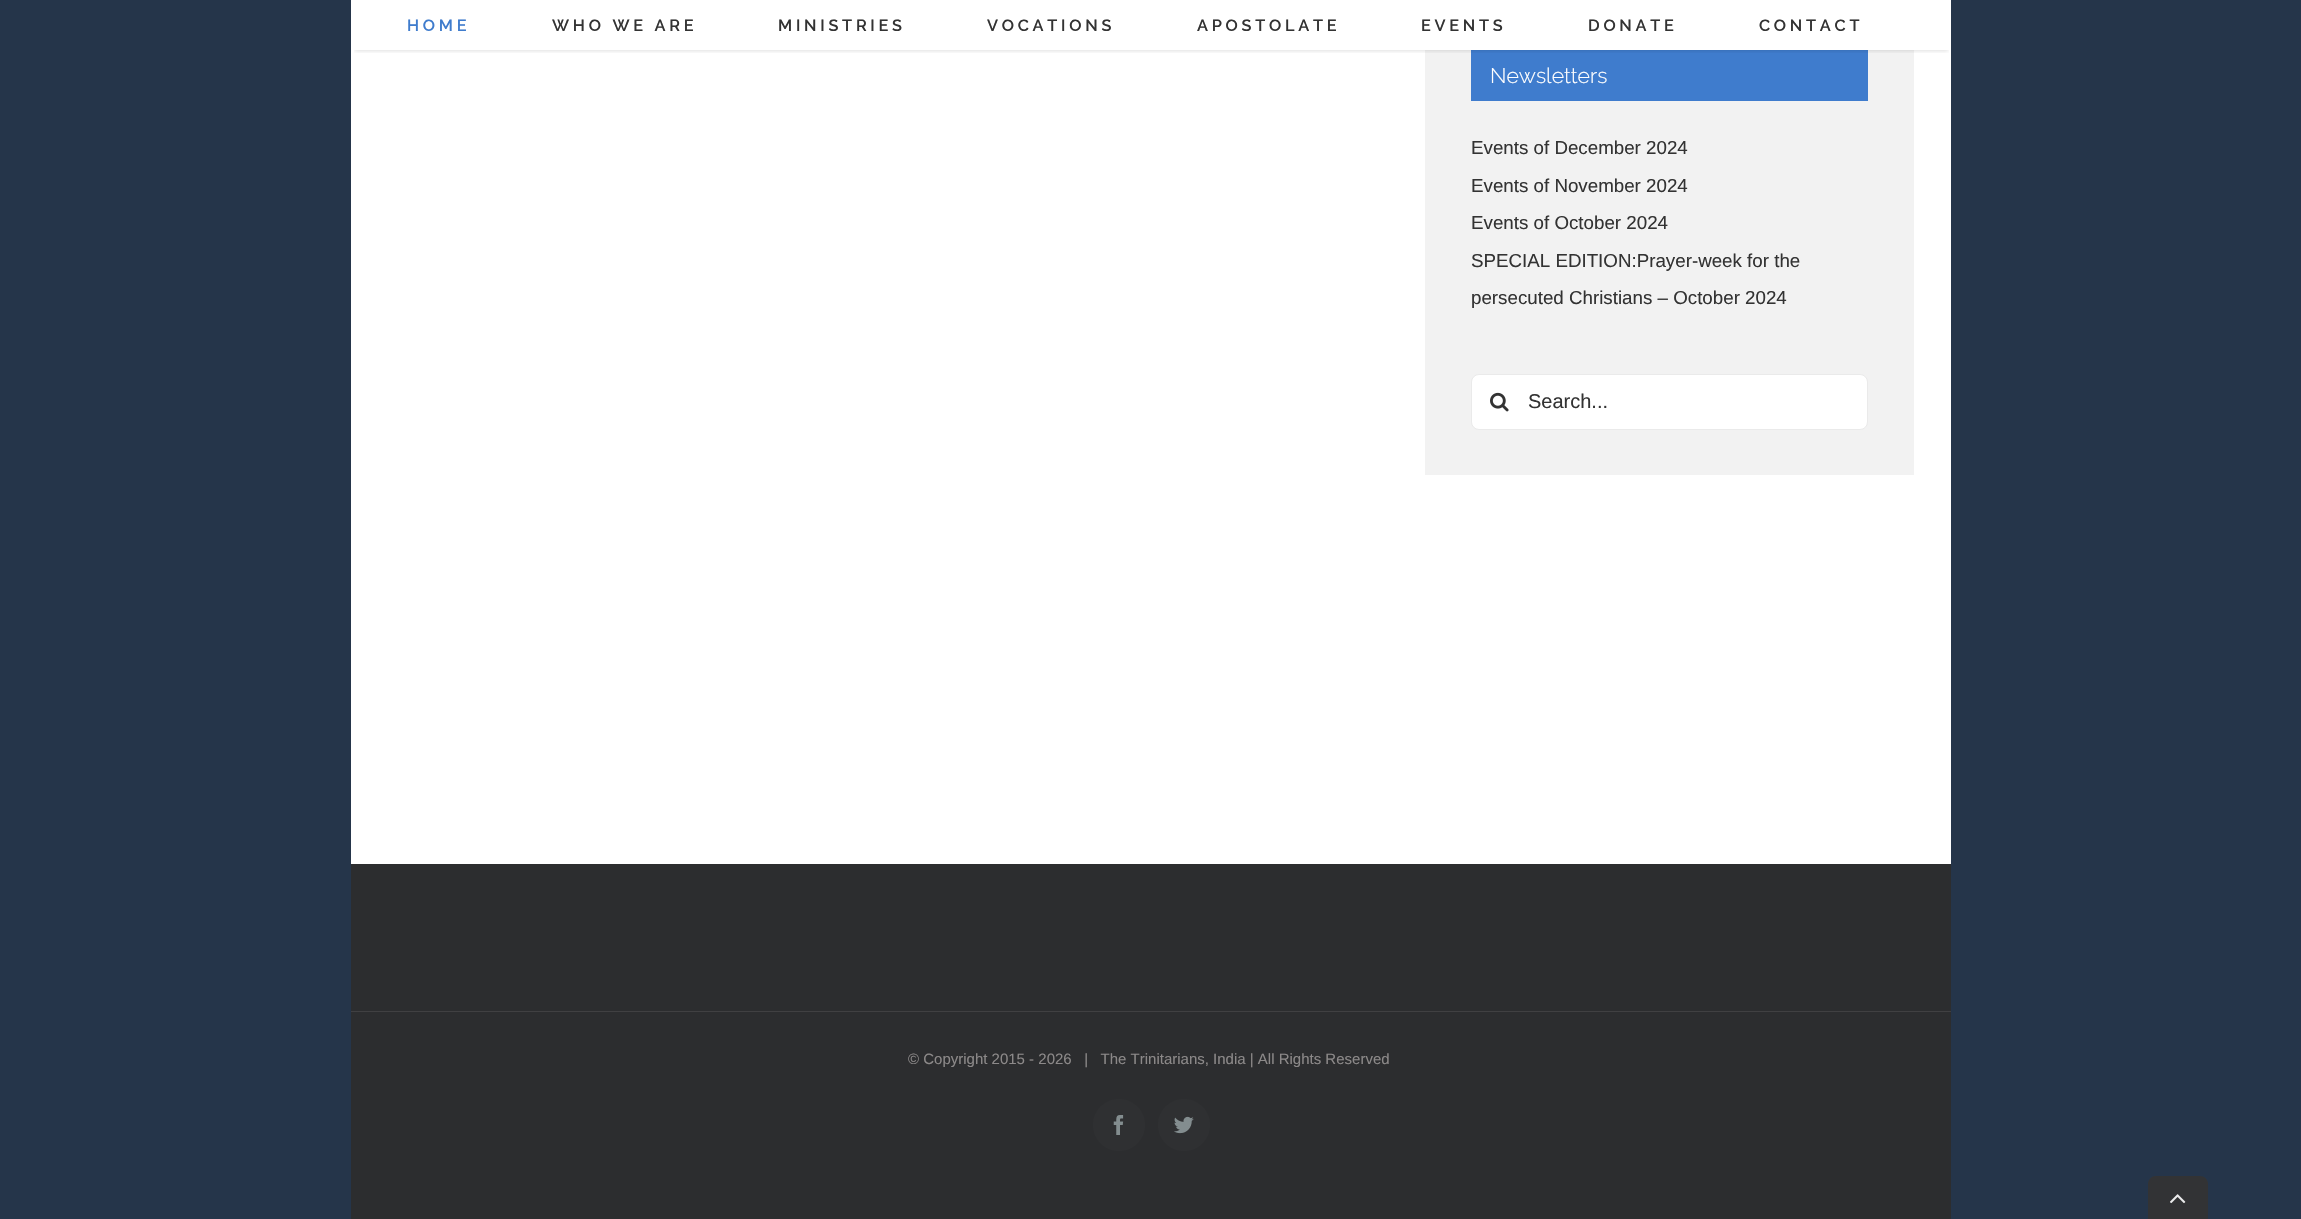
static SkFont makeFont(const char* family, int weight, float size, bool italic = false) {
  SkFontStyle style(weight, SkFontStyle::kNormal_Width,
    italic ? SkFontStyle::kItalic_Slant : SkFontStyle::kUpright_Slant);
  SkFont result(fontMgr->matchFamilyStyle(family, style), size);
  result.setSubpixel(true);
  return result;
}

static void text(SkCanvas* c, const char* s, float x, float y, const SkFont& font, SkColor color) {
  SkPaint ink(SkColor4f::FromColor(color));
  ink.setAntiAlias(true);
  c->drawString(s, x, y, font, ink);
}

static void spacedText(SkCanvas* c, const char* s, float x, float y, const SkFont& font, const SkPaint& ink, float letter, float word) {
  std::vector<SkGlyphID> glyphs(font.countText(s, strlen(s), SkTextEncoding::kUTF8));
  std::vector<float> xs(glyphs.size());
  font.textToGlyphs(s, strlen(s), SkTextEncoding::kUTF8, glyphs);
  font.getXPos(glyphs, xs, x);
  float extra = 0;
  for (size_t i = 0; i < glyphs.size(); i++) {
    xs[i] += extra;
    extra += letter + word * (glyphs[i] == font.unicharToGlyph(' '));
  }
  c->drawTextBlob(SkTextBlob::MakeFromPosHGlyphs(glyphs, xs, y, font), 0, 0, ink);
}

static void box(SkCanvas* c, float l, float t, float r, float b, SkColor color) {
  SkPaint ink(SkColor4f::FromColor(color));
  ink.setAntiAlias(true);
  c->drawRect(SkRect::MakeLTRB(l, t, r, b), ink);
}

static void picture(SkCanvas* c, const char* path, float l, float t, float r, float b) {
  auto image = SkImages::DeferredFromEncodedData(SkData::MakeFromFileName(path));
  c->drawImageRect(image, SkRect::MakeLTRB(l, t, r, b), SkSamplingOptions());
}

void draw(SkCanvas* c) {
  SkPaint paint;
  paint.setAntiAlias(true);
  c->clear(0xff25354a);
  box(c, 351, 0, 1951, 864, 0xffffffff);
  box(c, 1425, 50, 1914, 475, 0xfff2f2f2);
  box(c, 1471, 50, 1868, 101, 0xff3f7ccd);
  c->save();
  c->clipRect(SkRect::MakeLTRB(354, 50, 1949, 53));
  paint.setColor(0x1f000000);
  paint.setMaskFilter(SkMaskFilter::MakeBlur(kNormal_SkBlurStyle, 2));
  c->drawRect(SkRect::MakeLTRB(355, 9, 1948, 51), paint);
  paint.setMaskFilter(nullptr);
  c->restore();
  SkFont face1 = makeFont("Raleway", 600, 16.25f);
  paint.setColor(0xff3f7ccd);
  spacedText(c, "HOME", 407, 31, face1, paint, 3.75f, 0);
  paint.setColor(0xff333333);
  spacedText(c, "WHO WE ARE", 552, 31, face1, paint, 3.75f, 0);
  spacedText(c, "MINISTRIES", 778, 31, face1, paint, 3.75f, 0);
  spacedText(c, "VOCATIONS", 987, 31, face1, paint, 3.75f, 0);
  spacedText(c, "APOSTOLATE", 1197, 31, face1, paint, 3.75f, 0);
  spacedText(c, "EVENTS", 1421, 31, face1, paint, 3.75f, 0);
  spacedText(c, "DONATE", 1588, 31, face1, paint, 3.75f, 0);
  spacedText(c, "CONTACT", 1759, 31, face1, paint, 3.75f, 0);
  SkFont face2 = makeFont("Raleway", 300, 21.25f);
  text(c, "Newsletters", 1490, 83, face2, 0xffffffff);
  SkFont face3 = makeFont("Liberation Sans", 400, 18.75f);
  text(c, "Events of December 2024", 1471, 154, face3, 0xff333333);
  text(c, "Events of November 2024", 1471, 192, face3, 0xff333333);
  text(c, "Events of October 2024", 1471, 229, face3, 0xff333333);
  text(c, "SPECIAL EDITION:Prayer-week for the", 1471, 267, face3, 0xff333333);
  text(c, "persecuted Christians – October 2024", 1471, 304, face3, 0xff333333);
  paint.setColor(0xffffffff);
  c->drawRoundRect(SkRect::MakeLTRB(1471.5f, 374.5f, 1867.5f, 429.5f), 7.5f, 7.5f, paint);
  paint.setStyle(SkPaint::kStroke_Style);
  paint.setStrokeWidth(1);
  paint.setColor(0xffeaeaea);
  c->drawRoundRect(SkRect::MakeLTRB(1471.5f, 374.5f, 1867.5f, 429.5f), 7.5f, 7.5f, paint);
  picture(c, "img_01.png", 1490, 392, 1509, 412);
  SkFont face4 = makeFont("Liberation Sans", 400, 20);
  text(c, "Search...", 1528, 408, face4, 0xff333333);
  box(c, 351, 864, 1951, 1011, 0xff2c2d2f);
  box(c, 351, 1012, 1951, 1219, 0xff2c2d2f);
  box(c, 351, 1011, 1951, 1012, 0xff404042);
  SkFont face5 = makeFont("Liberation Sans", 400, 15);
  text(c, "© Copyright 2015 - 2026   |   The Trinitarians, India | All Rights Reserved", 908, 1064, face5, 0xff8c8989);
  paint.setStyle(SkPaint::kFill_Style);
  paint.setColor(0xff2f3032);
  c->drawCircle(1119, 1125, 26, paint);
  picture(c, "img_02.png", 1113, 1115, 1124, 1135);
  c->drawCircle(1184, 1125, 26, paint);
  picture(c, "img_03.png", 1174, 1116, 1194, 1134);
  paint.setColor(0xff323335);
  c->drawPath(SkPathBuilder().moveTo(2156, 1176).lineTo(2200, 1176).cubicTo(2204.5f, 1176, 2208, 1179.5f, 2208, 1184).lineTo(2208, 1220).lineTo(2148, 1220).lineTo(2148, 1184).cubicTo(2148, 1179.5f, 2151.5f, 1176, 2156, 1176).close().detach(), paint);
  picture(c, "img_04.png", 2170, 1194, 2186, 1204);
}
